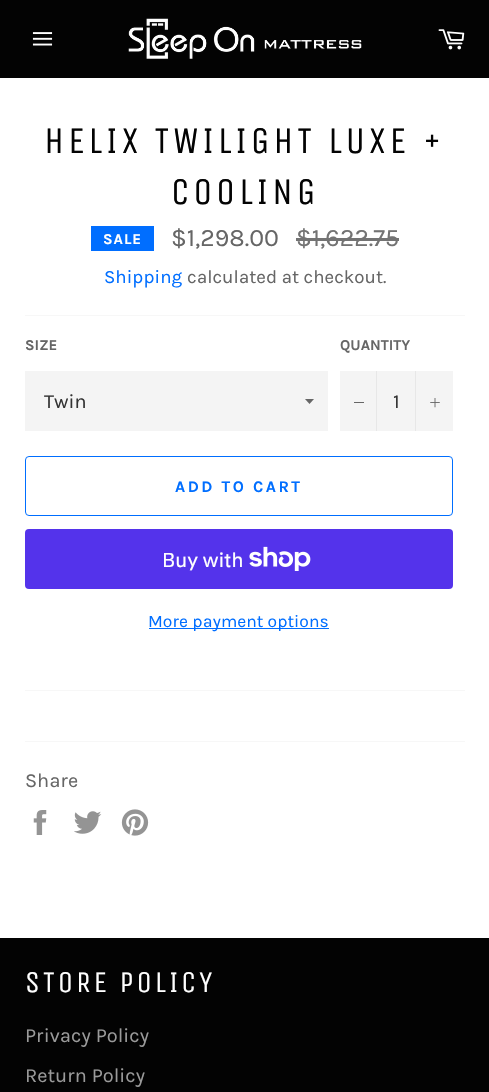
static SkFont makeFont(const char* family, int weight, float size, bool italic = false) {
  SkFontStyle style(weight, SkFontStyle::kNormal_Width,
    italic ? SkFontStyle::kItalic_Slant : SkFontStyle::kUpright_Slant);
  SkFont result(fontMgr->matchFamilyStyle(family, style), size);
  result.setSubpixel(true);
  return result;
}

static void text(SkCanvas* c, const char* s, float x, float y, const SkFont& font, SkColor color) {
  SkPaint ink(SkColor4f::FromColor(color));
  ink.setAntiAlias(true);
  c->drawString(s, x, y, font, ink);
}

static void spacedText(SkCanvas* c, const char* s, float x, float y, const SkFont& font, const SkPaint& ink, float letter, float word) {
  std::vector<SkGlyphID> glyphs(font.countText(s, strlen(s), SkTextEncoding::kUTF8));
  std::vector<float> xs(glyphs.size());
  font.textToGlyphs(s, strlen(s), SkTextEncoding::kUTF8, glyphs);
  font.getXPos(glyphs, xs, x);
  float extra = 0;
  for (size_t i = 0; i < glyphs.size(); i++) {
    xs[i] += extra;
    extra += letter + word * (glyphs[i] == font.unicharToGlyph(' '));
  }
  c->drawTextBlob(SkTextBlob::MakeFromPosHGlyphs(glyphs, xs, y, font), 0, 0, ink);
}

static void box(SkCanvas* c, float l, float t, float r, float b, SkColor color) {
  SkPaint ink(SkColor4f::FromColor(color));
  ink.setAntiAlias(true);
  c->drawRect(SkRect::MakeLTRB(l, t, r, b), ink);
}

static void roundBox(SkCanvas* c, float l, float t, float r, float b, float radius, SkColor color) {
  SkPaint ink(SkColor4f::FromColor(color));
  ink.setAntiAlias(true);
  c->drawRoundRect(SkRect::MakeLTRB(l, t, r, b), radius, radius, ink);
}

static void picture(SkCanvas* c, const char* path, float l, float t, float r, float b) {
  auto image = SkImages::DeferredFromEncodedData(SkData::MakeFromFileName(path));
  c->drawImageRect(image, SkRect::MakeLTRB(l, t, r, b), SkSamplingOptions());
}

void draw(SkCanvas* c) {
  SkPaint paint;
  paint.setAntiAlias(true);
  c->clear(0xff030303);
  picture(c, "img_01.png", 32, 32, 53, 46);
  picture(c, "img_02.png", 128, 18, 362, 59);
  picture(c, "img_03.png", 438, 29, 465, 50);
  box(c, 0, 78, 489, 938, 0xffffffff);
  SkFont face1 = makeFont("Unica One", 400, 37.5f);
  paint.setColor(0xff030303);
  spacedText(c, "HELIX TWILIGHT LUXE +", 44, 153, face1, paint, 3.75f, 0);
  spacedText(c, "COOLING", 171, 204, face1, paint, 3.75f, 0);
  box(c, 91, 226, 154, 251, 0xff006eff);
  SkFont face2 = makeFont("Karla", 700, 15);
  paint.setColor(0xffffffff);
  spacedText(c, "SALE", 103, 244, face2, paint, 1, 0);
  SkFont face3 = makeFont("Karla", 400, 25);
  text(c, "$1,298.00", 171, 246, face3, 0xff666666);
  text(c, "$1,622.75", 296, 246, face3, 0xff737373);
  box(c, 296, 238, 399, 241, 0xff737373);
  SkFont face4 = makeFont("Karla", 400, 18.75f);
  text(c, "Shipping", 104, 283, face4, 0xff006eff);
  text(c, "calculated at checkout.", 187, 283, face4, 0xff666666);
  box(c, 25, 315, 465, 316, 0xfff7f7f7);
  text(c, "SIZE", 25, 350, face2, 0xff666666);
  box(c, 25, 371, 328, 431, 0xfff4f4f4);
  paint.setColor(0xff666666);
  c->drawPath(SkPathBuilder().moveTo(305, 399).lineTo(309.5f, 404).lineTo(314, 399).close().detach(), paint);
  SkFont face5 = makeFont("Karla", 400, 20);
  text(c, "Twin", 44, 408, face5, 0xff333333);
  text(c, "QUANTITY", 340, 350, face2, 0xff666666);
  box(c, 340, 371, 453, 431, 0xfff4f4f4);
  box(c, 376, 371, 377, 431, 0xffe7e7e7);
  box(c, 354, 402, 364, 403, 0xff666666);
  text(c, "1", 393, 408, face5, 0xff333333);
  box(c, 415, 371, 416, 431, 0xffe7e7e7);
  picture(c, "img_04.png", 430, 398, 440, 408);
  paint.setStyle(SkPaint::kStroke_Style);
  paint.setStrokeWidth(1);
  paint.setColor(0xff006eff);
  c->drawRoundRect(SkRect::MakeLTRB(25.5f, 456.5f, 452.5f, 515.5f), 3.5f, 3.5f, paint);
  SkFont face6 = makeFont("Karla", 700, 16.25f);
  paint.setStyle(SkPaint::kFill_Style);
  spacedText(c, "ADD TO CART", 175, 492, face6, paint, 2.5f, 0);
  roundBox(c, 25, 529, 453, 589, 4, 0xff5433eb);
  SkFont face7 = makeFont("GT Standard", 400, 20);
  text(c, "Buy with", 162, 567, face7, 0xffffffff);
  picture(c, "img_05.png", 249, 546, 311, 571);
  box(c, 149, 628, 329, 629, 0xff006eff);
  SkFont face8 = makeFont("Karla", 400, 17.5f);
  text(c, "More payment options", 148, 627, face8, 0xff006eff);
  box(c, 25, 690, 465, 691, 0xfff7f7f7);
  box(c, 25, 741, 465, 742, 0xfff7f7f7);
  text(c, "Share", 25, 787, face5, 0xff666666);
  picture(c, "img_06.png", 33, 810, 47, 835);
  picture(c, "img_07.png", 74, 811, 102, 834);
  picture(c, "img_08.png", 121, 809, 149, 836);
  SkFont face9 = makeFont("Unica One", 400, 30);
  paint.setColor(0xffffffff);
  spacedText(c, "STORE POLICY", 25, 992, face9, paint, 3, 0);
  text(c, "Privacy Policy", 25, 1042, face5, 0xff9a9a9a);
  text(c, "Return Policy", 25, 1082, face5, 0xff9a9a9a);
}
